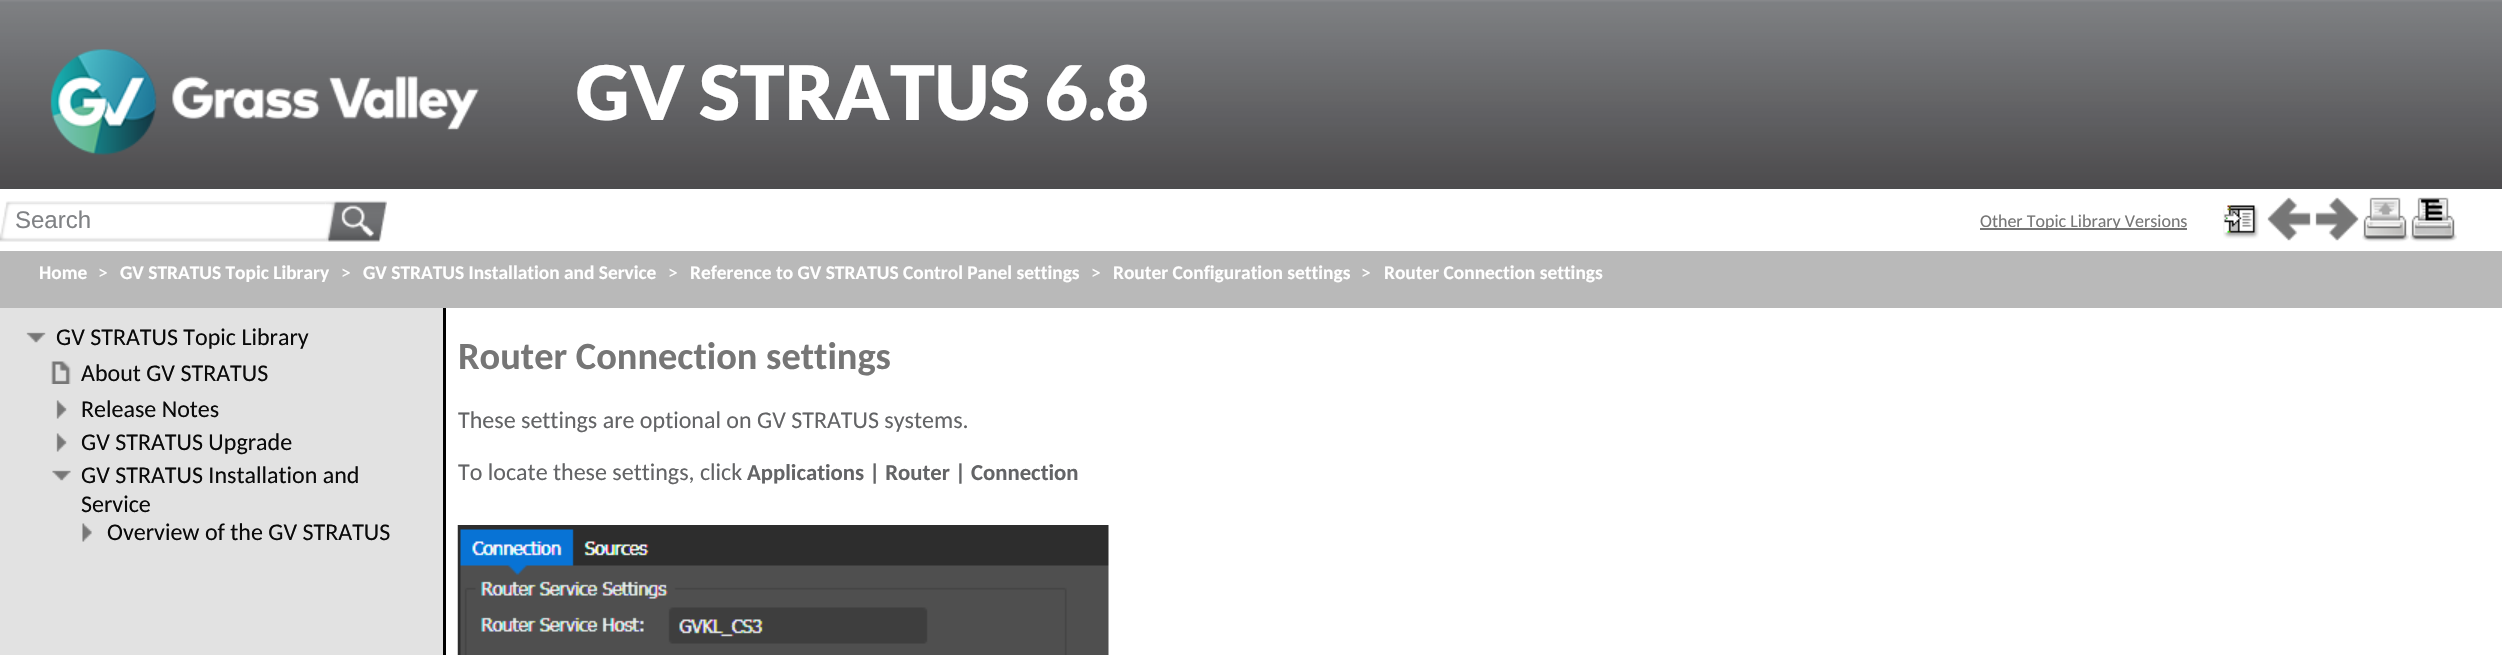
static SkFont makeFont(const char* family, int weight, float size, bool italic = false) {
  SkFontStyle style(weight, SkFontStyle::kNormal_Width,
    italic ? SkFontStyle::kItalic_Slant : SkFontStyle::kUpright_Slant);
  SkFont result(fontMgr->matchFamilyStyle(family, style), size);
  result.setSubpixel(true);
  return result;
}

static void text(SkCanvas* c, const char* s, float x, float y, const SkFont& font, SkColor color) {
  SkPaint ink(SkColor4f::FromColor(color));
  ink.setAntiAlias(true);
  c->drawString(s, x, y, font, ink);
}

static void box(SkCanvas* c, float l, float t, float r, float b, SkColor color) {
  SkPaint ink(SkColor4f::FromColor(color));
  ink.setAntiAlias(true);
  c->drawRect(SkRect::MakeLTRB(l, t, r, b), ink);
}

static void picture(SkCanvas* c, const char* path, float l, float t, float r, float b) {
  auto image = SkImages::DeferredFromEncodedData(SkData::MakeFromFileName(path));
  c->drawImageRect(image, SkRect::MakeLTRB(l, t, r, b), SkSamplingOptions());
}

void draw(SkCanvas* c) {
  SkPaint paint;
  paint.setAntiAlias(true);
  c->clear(0xffffffff);
  picture(c, "img_01.png", 0, 0, 2502, 189);
  picture(c, "img_02.png", 50, 49, 479, 155);
  SkFont face1 = makeFont("Lato", 900, 75);
  text(c, "GV STRATUS 6.8", 576, 120, face1, 0xffffffff);
  picture(c, "img_03.png", 0, 201, 15, 242);
  picture(c, "img_04.png", 15, 201, 326, 242);
  SkFont face2 = makeFont("Liberation Sans", 400, 24);
  text(c, "Search", 15, 228, face2, 0xff808285);
  picture(c, "img_05.png", 325, 200, 387, 242);
  box(c, 1980, 228, 2187, 230, 0xff767676);
  SkFont face3 = makeFont("Carlito", 400, 18);
  text(c, "Other Topic Library Versions", 1980, 227, face3, 0xff767676);
  picture(c, "img_06.png", 2223, 205, 2259, 239);
  picture(c, "img_07.png", 2267, 197, 2311, 241);
  picture(c, "img_08.png", 2315, 197, 2359, 241);
  picture(c, "img_09.png", 2362, 197, 2409, 242);
  picture(c, "img_10.png", 2410, 197, 2457, 242);
  box(c, 0, 251, 2502, 308, 0xffb9b9b9);
  SkFont face4 = makeFont("Carlito", 700, 19.4f);
  text(c, "Home", 39, 279, face4, 0xffffffff);
  SkFont face5 = makeFont("Carlito", 400, 19.4f);
  text(c, ">", 98, 279, face5, 0xffffffff);
  text(c, "GV STRATUS Topic Library", 120, 279, face4, 0xffffffff);
  text(c, ">", 341, 279, face5, 0xffffffff);
  text(c, "GV STRATUS Installation and Service", 363, 279, face4, 0xffffffff);
  text(c, ">", 668, 279, face5, 0xffffffff);
  text(c, "Reference to GV STRATUS Control Panel settings", 690, 279, face4, 0xffffffff);
  text(c, ">", 1091, 279, face5, 0xffffffff);
  text(c, "Router Configuration settings", 1113, 279, face4, 0xffffffff);
  text(c, ">", 1361, 279, face5, 0xffffffff);
  text(c, "Router Connection settings", 1384, 279, face4, 0xffffffff);
  SkFont face6 = makeFont("Carlito", 700, 38.4f);
  text(c, "Router Connection settings", 458, 369, face6, 0xff767676);
  c->save();
  c->clipRect(SkRect::MakeLTRB(458, 308, 2502, 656));
  SkFont face7 = makeFont("Carlito", 400, 24);
  text(c, "These settings are optional on", 458, 428, face7, 0xff636466);
  c->restore();
  text(c, "GV STRATUS systems.", 757, 428, face7, 0xff636466);
  c->save();
  c->clipRect(SkRect::MakeLTRB(458, 308, 2502, 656));
  text(c, "To locate these settings, click", 458, 480, face7, 0xff636466);
  c->restore();
  SkFont face8 = makeFont("Carlito", 700, 22.75f);
  text(c, "Applications | Router | Connection", 747, 480, face8, 0xff636466);
  picture(c, "img_11.png", 457, 525, 1109, 655);
  box(c, 0, 308, 443, 655, 0xffe2e2e2);
  picture(c, "img_12.png", 26, 332, 46, 343);
  text(c, "GV STRATUS Topic Library", 56, 345, face7, 0xff0a0a0a);
  picture(c, "img_13.png", 51, 361, 71, 384);
  text(c, "About GV STRATUS", 81, 381, face7, 0xff0a0a0a);
  picture(c, "img_14.png", 56, 400, 67, 419);
  text(c, "Release Notes", 81, 417, face7, 0xff0a0a0a);
  picture(c, "img_14.png", 56, 433, 67, 452);
  text(c, "GV STRATUS Upgrade", 81, 450, face7, 0xff0a0a0a);
  picture(c, "img_15.png", 52, 470, 71, 481);
  text(c, "GV STRATUS Installation and", 81, 483, face7, 0xff0a0a0a);
  text(c, "Service", 81, 512, face7, 0xff0a0a0a);
  picture(c, "img_16.png", 82, 523, 92, 542);
  text(c, "Overview of the GV STRATUS", 107, 540, face7, 0xff0a0a0a);
  box(c, 443, 308, 446, 655, 0xff000000);
}
